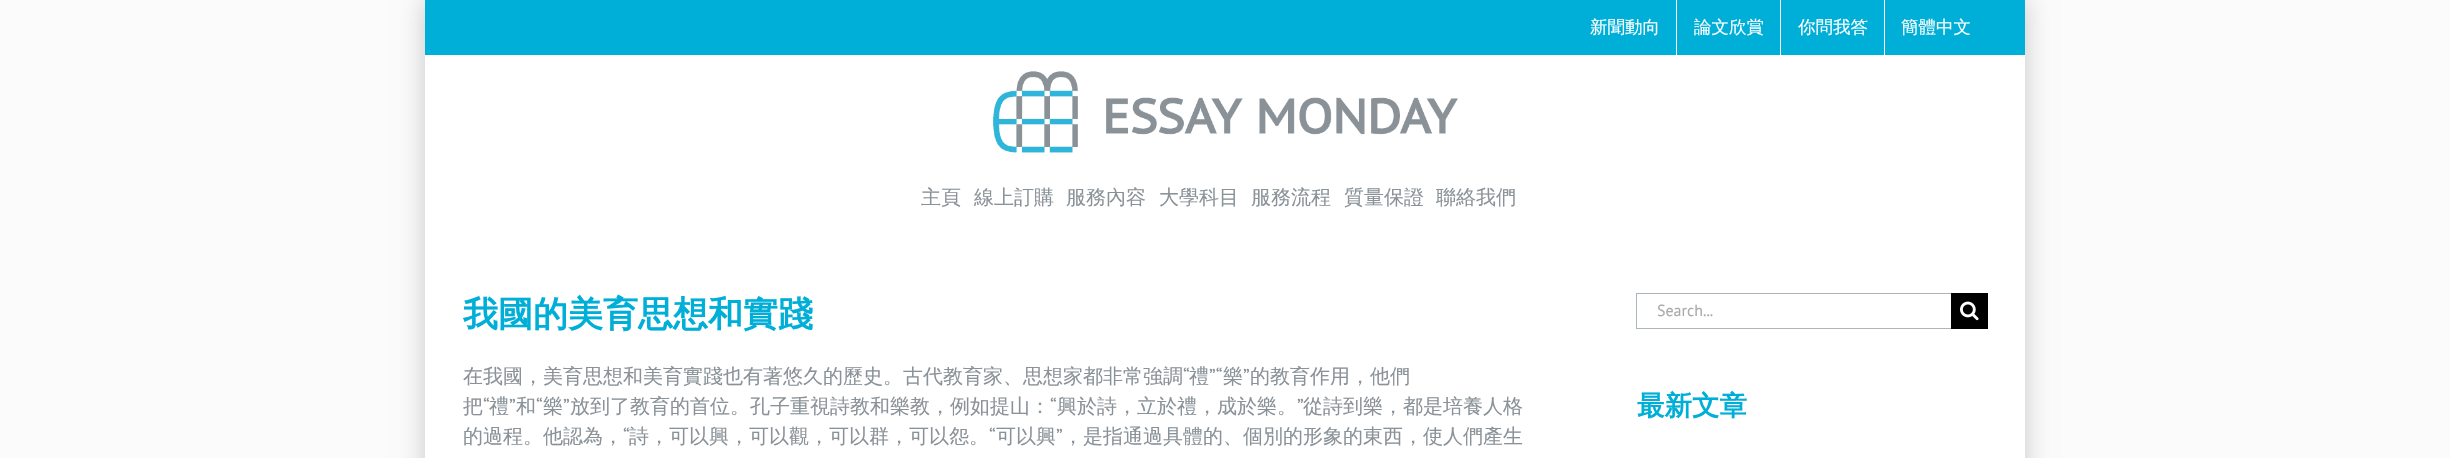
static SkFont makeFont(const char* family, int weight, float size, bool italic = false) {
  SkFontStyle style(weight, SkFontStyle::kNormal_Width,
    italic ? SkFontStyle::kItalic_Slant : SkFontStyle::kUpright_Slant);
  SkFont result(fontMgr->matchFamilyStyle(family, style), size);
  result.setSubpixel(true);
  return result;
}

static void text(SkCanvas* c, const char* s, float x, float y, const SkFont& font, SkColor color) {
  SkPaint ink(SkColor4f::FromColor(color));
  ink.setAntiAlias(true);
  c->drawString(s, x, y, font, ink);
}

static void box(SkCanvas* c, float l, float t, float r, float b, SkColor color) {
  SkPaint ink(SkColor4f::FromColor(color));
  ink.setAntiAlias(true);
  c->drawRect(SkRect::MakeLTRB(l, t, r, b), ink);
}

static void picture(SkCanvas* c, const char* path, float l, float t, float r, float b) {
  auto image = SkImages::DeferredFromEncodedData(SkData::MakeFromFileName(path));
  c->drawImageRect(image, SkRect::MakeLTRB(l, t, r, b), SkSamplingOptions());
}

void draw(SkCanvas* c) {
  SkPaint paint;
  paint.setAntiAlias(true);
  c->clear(0xfffbfbfb);
  paint.setColor(0x33000000);
  paint.setMaskFilter(SkMaskFilter::MakeBlur(kNormal_SkBlurStyle, 12.5f));
  c->drawRect(SkRect::MakeLTRB(425, 0, 2025, 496), paint);
  paint.setMaskFilter(nullptr);
  box(c, 425, 0, 2025, 55, 0xff00afd8);
  box(c, 425, 55, 2025, 173, 0xffffffff);
  SkFont face1 = makeFont("WenQuanYi Zen Hei", 500, 17.5f);
  text(c, "新聞動向", 1590, 33, face1, 0xffffffff);
  box(c, 1676, 0, 1677, 55, 0xffffffff);
  text(c, "論文欣賞", 1694, 33, face1, 0xffffffff);
  box(c, 1780, 0, 1781, 55, 0xffffffff);
  text(c, "你問我答", 1798, 33, face1, 0xffffffff);
  box(c, 1884, 0, 1885, 55, 0xffffffff);
  text(c, "簡體中文", 1901, 33, face1, 0xffffffff);
  picture(c, "img_01.png", 993, 71, 1458, 153);
  box(c, 425, 173, 2025, 458, 0xffffffff);
  SkFont face2 = makeFont("WenQuanYi Zen Hei", 500, 20);
  text(c, "主頁", 921, 204, face2, 0xff8a9298);
  text(c, "線上訂購", 974, 204, face2, 0xff8a9298);
  text(c, "服務內容", 1066, 204, face2, 0xff8a9298);
  text(c, "大學科目", 1159, 204, face2, 0xff8a9298);
  text(c, "服務流程", 1251, 204, face2, 0xff8a9298);
  text(c, "質量保證", 1344, 204, face2, 0xff8a9298);
  text(c, "聯絡我們", 1436, 204, face2, 0xff8a9298);
  SkFont face3 = makeFont("WenQuanYi Zen Hei", 700, 35);
  text(c, "我國的美育思想和實踐", 463, 326, face3, 0xff00afd8);
  text(c, "在我國，美育思想和美育實踐也有著悠久的歷史。古代教育家、思想家都非常強調", 463, 383, face2, 0xff8a9298);
  SkFont face4 = makeFont("PT Sans", 400, 20);
  text(c, "“", 1183, 383, face4, 0xff8a9298);
  text(c, "禮", 1189, 383, face2, 0xff8a9298);
  text(c, "”“", 1209, 383, face4, 0xff8a9298);
  text(c, "樂", 1223, 383, face2, 0xff8a9298);
  text(c, "”", 1243, 383, face4, 0xff8a9298);
  text(c, "的教育作用，他們", 1250, 383, face2, 0xff8a9298);
  text(c, "把", 463, 413, face2, 0xff8a9298);
  text(c, "“", 483, 413, face4, 0xff8a9298);
  text(c, "禮", 489, 413, face2, 0xff8a9298);
  text(c, "”", 509, 413, face4, 0xff8a9298);
  text(c, "和", 516, 413, face2, 0xff8a9298);
  text(c, "“", 536, 413, face4, 0xff8a9298);
  text(c, "樂", 543, 413, face2, 0xff8a9298);
  text(c, "”", 563, 413, face4, 0xff8a9298);
  text(c, "放到了教育的首位。孔子重視詩教和樂教，例如提山：", 570, 413, face2, 0xff8a9298);
  text(c, "“", 1050, 413, face4, 0xff8a9298);
  text(c, "興於詩，立於禮，成於樂。", 1057, 413, face2, 0xff8a9298);
  text(c, "”", 1297, 413, face4, 0xff8a9298);
  text(c, "從詩到樂，都是培養人格", 1303, 413, face2, 0xff8a9298);
  text(c, "的過程。他認為，", 463, 443, face2, 0xff8a9298);
  text(c, "“", 623, 443, face4, 0xff8a9298);
  text(c, "詩，可以興，可以觀，可以群，可以怨。", 629, 443, face2, 0xff8a9298);
  text(c, "“", 989, 443, face4, 0xff8a9298);
  text(c, "可以興", 996, 443, face2, 0xff8a9298);
  text(c, "”", 1056, 443, face4, 0xff8a9298);
  text(c, "，是指通過具體的、個別的形象的東西，使人們產生", 1063, 443, face2, 0xff8a9298);
  box(c, 1636, 293, 1951, 294, 0xffacb4bc);
  box(c, 1636, 328, 1951, 329, 0xffacb4bc);
  box(c, 1636, 293, 1637, 329, 0xffacb4bc);
  SkFont face5 = makeFont("PT Sans", 400, 16);
  text(c, "Search...", 1657, 316, face5, 0xffa9a9a9);
  box(c, 1951, 293, 1988, 329, 0xff000000);
  picture(c, "img_02.png", 1960, 301, 1979, 321);
  SkFont face6 = makeFont("WenQuanYi Zen Hei", 700, 27.5f);
  text(c, "最新文章", 1637, 415, face6, 0xff00afd8);
}
